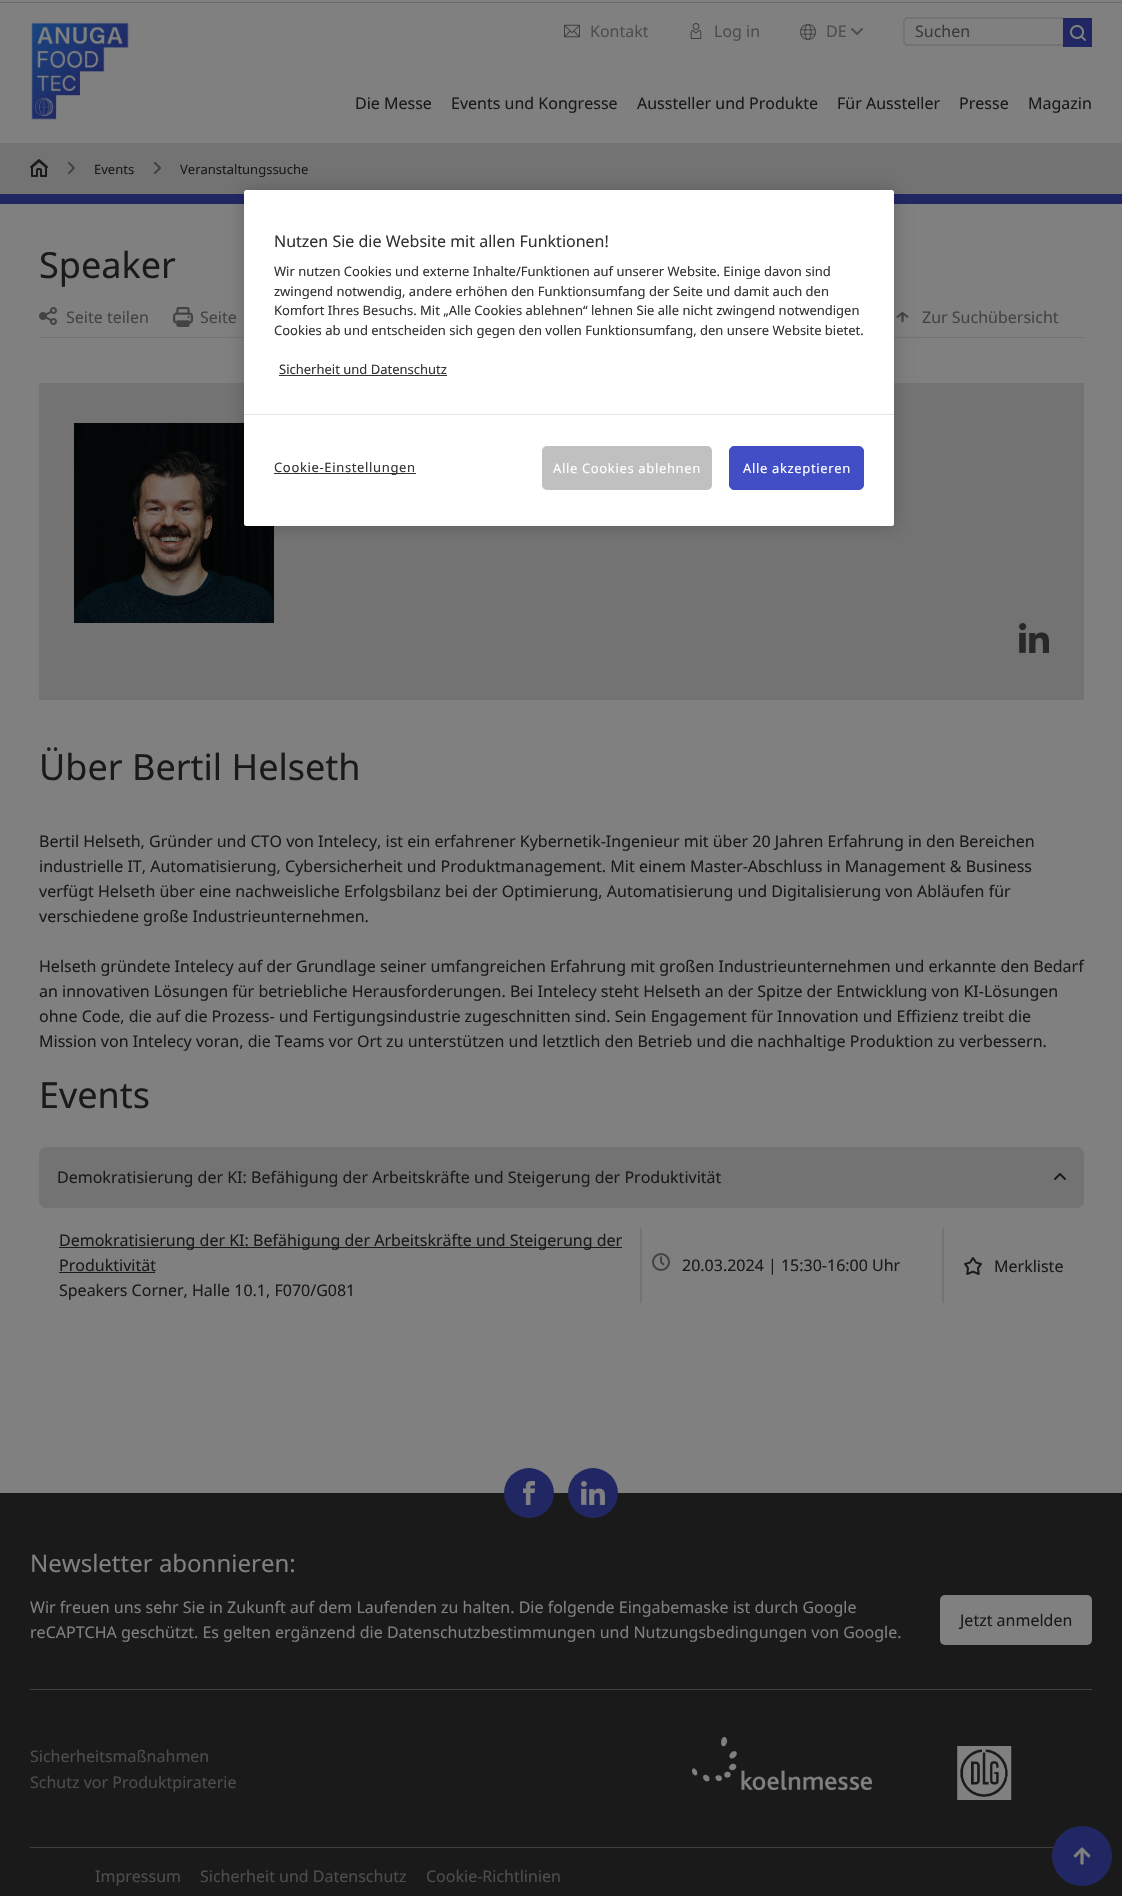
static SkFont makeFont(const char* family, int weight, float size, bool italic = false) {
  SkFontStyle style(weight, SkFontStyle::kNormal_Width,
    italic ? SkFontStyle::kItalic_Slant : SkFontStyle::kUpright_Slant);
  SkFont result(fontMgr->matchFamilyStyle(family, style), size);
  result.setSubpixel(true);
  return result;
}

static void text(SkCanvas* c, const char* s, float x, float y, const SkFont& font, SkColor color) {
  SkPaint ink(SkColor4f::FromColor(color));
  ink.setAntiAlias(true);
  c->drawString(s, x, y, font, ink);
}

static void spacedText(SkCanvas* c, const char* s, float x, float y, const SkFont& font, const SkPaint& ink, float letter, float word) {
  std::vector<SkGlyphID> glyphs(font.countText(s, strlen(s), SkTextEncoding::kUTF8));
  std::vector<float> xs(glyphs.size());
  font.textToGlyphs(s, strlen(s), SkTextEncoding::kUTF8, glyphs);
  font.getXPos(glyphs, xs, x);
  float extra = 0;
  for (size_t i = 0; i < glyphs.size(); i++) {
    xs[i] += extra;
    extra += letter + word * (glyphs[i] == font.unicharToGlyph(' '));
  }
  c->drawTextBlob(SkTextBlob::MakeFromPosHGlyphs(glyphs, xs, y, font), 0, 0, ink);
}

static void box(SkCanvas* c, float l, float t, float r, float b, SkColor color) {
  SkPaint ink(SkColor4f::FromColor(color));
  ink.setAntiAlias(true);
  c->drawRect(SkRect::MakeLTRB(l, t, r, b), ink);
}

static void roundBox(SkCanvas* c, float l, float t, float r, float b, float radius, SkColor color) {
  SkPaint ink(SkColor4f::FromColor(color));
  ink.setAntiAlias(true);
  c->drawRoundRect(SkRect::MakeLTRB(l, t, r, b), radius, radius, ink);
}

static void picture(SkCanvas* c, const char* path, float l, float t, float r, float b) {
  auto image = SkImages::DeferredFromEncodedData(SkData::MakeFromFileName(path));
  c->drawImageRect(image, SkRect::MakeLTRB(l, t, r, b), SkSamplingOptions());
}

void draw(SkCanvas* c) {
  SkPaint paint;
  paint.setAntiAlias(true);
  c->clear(0xff808080);
  box(c, 0, 2, 1122, 3, 0xff696969);
  picture(c, "img_01.png", 31, 22, 129, 120);
  picture(c, "img_02.png", 564, 24, 580, 38);
  SkFont face1 = makeFont("Noto Sans", 400, 16);
  text(c, "Kontakt", 590, 37, face1, 0xff4d4d4d);
  picture(c, "img_03.png", 690, 23, 702, 39);
  text(c, "Log in", 714, 37, face1, 0xff4d4d4d);
  picture(c, "img_04.png", 800, 24, 816, 40);
  text(c, "DE", 826, 37, face1, 0xff4d4d4d);
  picture(c, "img_05.png", 851, 28, 863, 35);
  paint.setColor(0xff737373);
  c->drawPath(SkPathBuilder(SkPathFillType::kEvenOdd).moveTo(908, 17).lineTo(1063, 17).lineTo(1063, 46).lineTo(908, 46).cubicTo(905, 46, 903, 44, 903, 41).lineTo(903, 22).cubicTo(903, 19, 905, 17, 908, 17).close().moveTo(908, 19).lineTo(1063, 19).lineTo(1063, 44).lineTo(907, 44).cubicTo(903, 43, 905, 34, 905, 32).cubicTo(905, 29, 903, 19, 908, 19).close().detach(), paint);
  text(c, "Suchen", 915, 37, face1, 0xff3b3b3b);
  box(c, 1063, 18, 1092, 47, 0xff212763);
  picture(c, "img_06.png", 1070, 25, 1086, 41);
  text(c, "Die Messe", 355, 109, face1, 0xff1a1a1a);
  text(c, "Events und Kongresse", 451, 109, face1, 0xff1a1a1a);
  text(c, "Aussteller und Produkte", 637, 109, face1, 0xff1a1a1a);
  text(c, "Für Aussteller", 837, 109, face1, 0xff1a1a1a);
  text(c, "Presse", 959, 109, face1, 0xff1a1a1a);
  text(c, "Magazin", 1028, 109, face1, 0xff1a1a1a);
  box(c, 0, 143, 1122, 194, 0xff737373);
  box(c, 0, 194, 1122, 204, 0xff212763);
  picture(c, "img_07.png", 68, 162, 75, 174);
  picture(c, "img_08.png", 30, 159, 48, 177);
  picture(c, "img_07.png", 154, 162, 161, 174);
  SkFont face2 = makeFont("Noto Sans", 400, 13);
  text(c, "Events", 94, 174, face2, 0xff1a1a1a);
  text(c, "Veranstaltungssuche", 180, 174, face2, 0xff1a1a1a);
  SkFont face3 = makeFont("Noto Sans", 400, 36);
  text(c, "Speaker", 39, 278, face3, 0xff1a1a1a);
  box(c, 39, 337, 1084, 338, 0xff737373);
  picture(c, "img_09.png", 39, 307, 57, 325);
  text(c, "Seite teilen", 66, 323, face1, 0xff434343);
  picture(c, "img_10.png", 173, 307, 193, 327);
  text(c, "Seite", 200, 323, face1, 0xff434343);
  picture(c, "img_11.png", 896, 311, 909, 323);
  text(c, "Zur Suchübersicht", 922, 323, face1, 0xff434343);
  box(c, 39, 383, 1084, 700, 0xff737373);
  picture(c, "img_12.png", 74, 423, 274, 623);
  picture(c, "img_13.png", 1019, 623, 1049, 653);
  text(c, "Über Bertil Helseth", 39, 780, face3, 0xff1a1a1a);
  text(c, "Bertil Helseth, Gründer und CTO von Intelecy, ist ein erfahrener Kybernetik-Ingenieur mit über 20 Jahren Erfahrung in den Bereichen", 39, 847, face1, 0xff1a1a1a);
  text(c, "industrielle IT, Automatisierung, Cybersicherheit und Produktmanagement. Mit einem Master-Abschluss in Management & Business", 39, 872, face1, 0xff1a1a1a);
  text(c, "verfügt Helseth über eine nachweisliche Erfolgsbilanz bei der Optimierung, Automatisierung und Digitalisierung von Abläufen für", 39, 897, face1, 0xff1a1a1a);
  text(c, "verschiedene große Industrieunternehmen.", 39, 922, face1, 0xff1a1a1a);
  text(c, "Helseth gründete Intelecy auf der Grundlage seiner umfangreichen Erfahrung mit großen Industrieunternehmen und erkannte den Bedarf", 39, 972, face1, 0xff1a1a1a);
  text(c, "an innovativen Lösungen für betriebliche Herausforderungen. Bei Intelecy steht Helseth an der Spitze der Entwicklung von KI-Lösungen", 39, 997, face1, 0xff1a1a1a);
  text(c, "ohne Code, die auf die Prozess- und Fertigungsindustrie zugeschnitten sind. Sein Engagement für Innovation und Effizienz treibt die", 39, 1022, face1, 0xff1a1a1a);
  text(c, "Mission von Intelecy voran, die Teams vor Ort zu unterstützen und letztlich den Betrieb und die nachhaltige Produktion zu verbessern.", 39, 1047, face1, 0xff1a1a1a);
  text(c, "Events", 39, 1108, face3, 0xff1a1a1a);
  roundBox(c, 39, 1147, 1084, 1208, 7, 0xff737373);
  text(c, "Demokratisierung der KI: Befähigung der Arbeitskräfte und Steigerung der Produktivität", 57, 1183, face1, 0xff1a1a1a);
  picture(c, "img_14.png", 1054, 1173, 1066, 1180);
  box(c, 59, 1247, 622, 1248, 0xff1a1a1a);
  text(c, "Demokratisierung der KI: Befähigung der Arbeitskräfte und Steigerung der", 59, 1246, face1, 0xff1a1a1a);
  text(c, "Produktivität", 59, 1271, face1, 0xff1a1a1a);
  box(c, 59, 1272, 155, 1273, 0xff1a1a1a);
  text(c, "Speakers Corner, Halle 10.1, F070/G081", 59, 1296, face1, 0xff1a1a1a);
  box(c, 640, 1228, 642, 1303, 0xff737373);
  picture(c, "img_15.png", 652, 1253, 670, 1271);
  text(c, "20.03.2024 | 15:30-16:00 Uhr", 682, 1271, face1, 0xff1a1a1a);
  box(c, 942, 1228, 944, 1303, 0xff737373);
  picture(c, "img_16.png", 964, 1257, 982, 1275);
  text(c, "Merkliste", 994, 1272, face1, 0xff1a1a1a);
  paint.setColor(0x33000000);
  paint.setMaskFilter(SkMaskFilter::MakeBlur(kNormal_SkBlurStyle, 9));
  c->drawRoundRect(SkRect::MakeLTRB(244, 190, 894, 526), 2.5f, 2.5f, paint);
  paint.setMaskFilter(nullptr);
  roundBox(c, 244, 190, 894, 526, 2.5f, 0xffffffff);
  text(c, "Nutzen Sie die Website mit allen Funktionen!", 274, 247, face1, 0xff333333);
  text(c, "Wir nutzen Cookies und externe Inhalte/Funktionen auf unserer Website. Einige davon sind", 274, 276, face2, 0xff333333);
  text(c, "zwingend notwendig, andere erhöhen den Funktionsumfang der Seite und damit auch den", 274, 296, face2, 0xff333333);
  text(c, "Komfort Ihres Besuchs. Mit „Alle Cookies ablehnen“ lehnen Sie alle nicht zwingend notwendigen", 274, 315, face2, 0xff333333);
  text(c, "Cookies ab und entscheiden sich gegen den vollen Funktionsumfang, den unsere Website bietet.", 274, 335, face2, 0xff333333);
  text(c, "Sicherheit und Datenschutz", 279, 374, face2, 0xff333333);
  box(c, 279, 375, 447, 376, 0xff333333);
  box(c, 244, 414, 894, 415, 0xffe5e5e5);
  box(c, 274, 473, 416, 474, 0xff333333);
  paint.setColor(0xff333333);
  spacedText(c, "Cookie-Einstellungen", 274, 472, face2, paint, 0.65f, 0);
  roundBox(c, 542, 446, 712, 490, 5, 0xffc0c0c0);
  paint.setColor(0xffffffff);
  spacedText(c, "Alle Cookies ablehnen", 553, 473, face2, paint, 0.65f, 0);
  paint.setColor(0xff424ec5);
  c->drawRoundRect(SkRect::MakeLTRB(729.5f, 446.5f, 863.5f, 489.5f), 4.5f, 4.5f, paint);
  paint.setStyle(SkPaint::kStroke_Style);
  paint.setStrokeWidth(1);
  c->drawRoundRect(SkRect::MakeLTRB(729.5f, 446.5f, 863.5f, 489.5f), 4.5f, 4.5f, paint);
  paint.setStyle(SkPaint::kFill_Style);
  paint.setColor(0xffffffff);
  spacedText(c, "Alle akzeptieren", 743, 473, face2, paint, 0.65f, 0);
  box(c, 0, 1493, 1122, 1896, 0xff1a1a1a);
  paint.setColor(0xff212763);
  c->drawCircle(529, 1493, 25, paint);
  picture(c, "img_17.png", 523, 1481, 535, 1505);
  c->drawCircle(593, 1493, 25, paint);
  picture(c, "img_18.png", 581, 1481, 605, 1505);
  box(c, 30, 1689, 1092, 1690, 0xff404040);
  SkFont face4 = makeFont("Noto Sans", 400, 24);
  text(c, "Newsletter abonnieren:", 30, 1572, face4, 0xff808080);
  text(c, "Wir freuen uns sehr Sie in Zukunft auf dem Laufenden zu halten. Die folgende Eingabemaske ist durch Google", 30, 1613, face1, 0xff808080);
  text(c, "reCAPTCHA geschützt. Es gelten ergänzend die Datenschutzbestimmungen und Nutzungsbedingungen von Google.", 30, 1638, face1, 0xff808080);
  roundBox(c, 940, 1595, 1092, 1645, 5, 0xff808080);
  text(c, "Jetzt anmelden", 960, 1626, face1, 0xff1a1a1a);
  text(c, "Sicherheitsmaßnahmen", 30, 1762, face1, 0xff4d4d4d);
  text(c, "Schutz vor Produktpiraterie", 30, 1788, face1, 0xff4d4d4d);
  picture(c, "img_19.png", 692, 1737, 872, 1790);
  picture(c, "img_20.png", 957, 1746, 1012, 1800);
  box(c, 30, 1847, 1054, 1848, 0xff404040);
  text(c, "Impressum", 95, 1882, face1, 0xff4d4d4d);
  text(c, "Sicherheit und Datenschutz", 200, 1882, face1, 0xff4d4d4d);
  text(c, "Cookie-Richtlinien", 426, 1882, face1, 0xff4d4d4d);
  c->drawCircle(1082, 1856, 30, paint);
  picture(c, "img_21.png", 1073, 1847, 1091, 1865);
}
